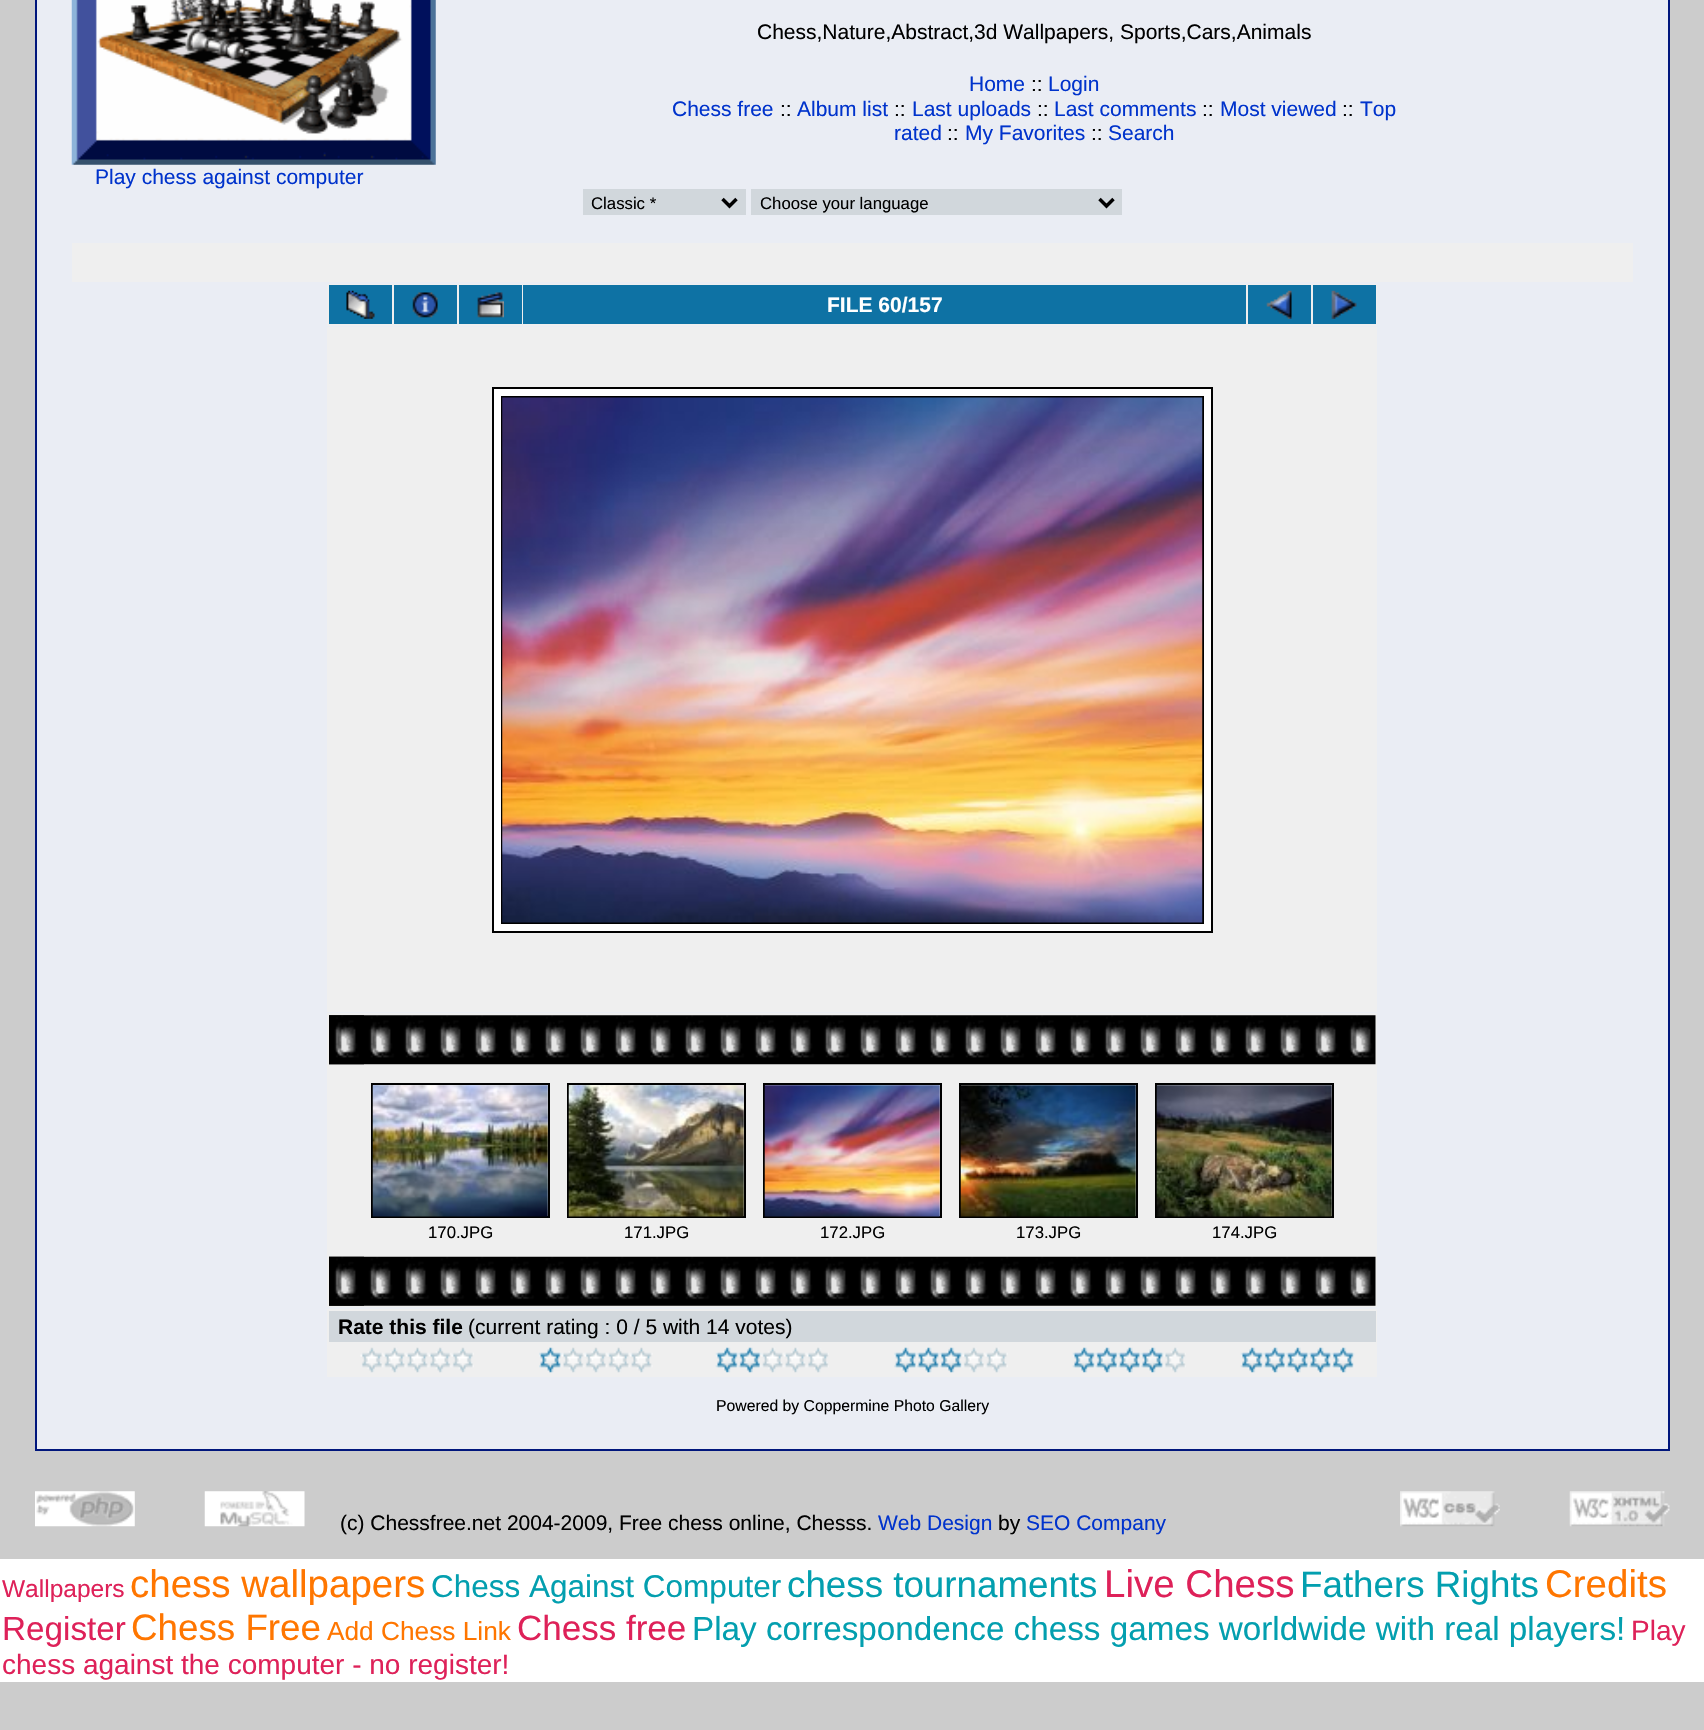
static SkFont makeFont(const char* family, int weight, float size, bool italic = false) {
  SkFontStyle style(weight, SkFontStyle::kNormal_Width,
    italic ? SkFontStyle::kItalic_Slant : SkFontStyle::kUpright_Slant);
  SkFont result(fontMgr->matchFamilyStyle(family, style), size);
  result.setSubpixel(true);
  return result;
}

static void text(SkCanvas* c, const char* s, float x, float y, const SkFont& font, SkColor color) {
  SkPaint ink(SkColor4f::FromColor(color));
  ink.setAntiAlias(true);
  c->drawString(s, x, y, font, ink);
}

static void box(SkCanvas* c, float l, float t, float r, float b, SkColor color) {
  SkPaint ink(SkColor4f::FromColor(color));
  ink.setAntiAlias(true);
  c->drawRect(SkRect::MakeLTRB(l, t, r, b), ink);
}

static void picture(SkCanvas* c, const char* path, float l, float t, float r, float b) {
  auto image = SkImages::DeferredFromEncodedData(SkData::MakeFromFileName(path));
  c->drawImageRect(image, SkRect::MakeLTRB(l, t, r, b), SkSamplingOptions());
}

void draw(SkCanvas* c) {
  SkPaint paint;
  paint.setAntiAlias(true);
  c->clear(0xffcccccc);
  paint.setColor(0xffeaedf4);
  c->drawRect(SkRect::MakeLTRB(36, -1, 1669, 1450), paint);
  paint.setStyle(SkPaint::kStroke_Style);
  paint.setStrokeWidth(2);
  paint.setColor(0xff00167c);
  c->drawRect(SkRect::MakeLTRB(36, -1, 1669, 1450), paint);
  SkFont face1 = makeFont("Liberation Sans", 400, 21);
  text(c, "Chess,Nature,Abstract,3d Wallpapers, Sports,Cars,Animals", 757, 39, face1, 0xff000000);
  text(c, "Home", 969, 91, face1, 0xff0033cc);
  text(c, "::", 1031, 91, face1, 0xff000000);
  text(c, "Login", 1048, 91, face1, 0xff0033cc);
  text(c, "Chess free", 672, 116, face1, 0xff0033cc);
  text(c, "::", 780, 116, face1, 0xff000000);
  text(c, "Album list", 797, 116, face1, 0xff0033cc);
  text(c, "::", 894, 116, face1, 0xff000000);
  text(c, "Last uploads", 912, 116, face1, 0xff0033cc);
  text(c, "::", 1037, 116, face1, 0xff000000);
  text(c, "Last comments", 1054, 116, face1, 0xff0033cc);
  text(c, "::", 1202, 116, face1, 0xff000000);
  text(c, "Most viewed", 1220, 116, face1, 0xff0033cc);
  text(c, "::", 1342, 116, face1, 0xff000000);
  text(c, "Top", 1360, 116, face1, 0xff0033cc);
  text(c, "rated", 894, 140, face1, 0xff0033cc);
  text(c, "::", 947, 140, face1, 0xff000000);
  text(c, "My Favorites", 965, 140, face1, 0xff0033cc);
  text(c, "::", 1091, 140, face1, 0xff000000);
  text(c, "Search", 1108, 140, face1, 0xff0033cc);
  picture(c, "img_01.png", 71, 0, 436, 165);
  text(c, "Play chess against computer", 95, 184, face1, 0xff0033cc);
  box(c, 583, 189, 746, 215, 0xffd1d7dc);
  paint.setStrokeWidth(3.5f);
  paint.setColor(0xff000000);
  c->drawPath(SkPathBuilder().moveTo(722.5f, 199).lineTo(729.5f, 206).lineTo(736.5f, 199).detach(), paint);
  SkFont face2 = makeFont("Liberation Sans", 400, 16.75f);
  text(c, "Classic *", 591, 209, face2, 0xff000000);
  box(c, 751, 189, 1122, 215, 0xffd1d7dc);
  c->drawPath(SkPathBuilder().moveTo(1099.5f, 199).lineTo(1106.5f, 206).lineTo(1113.5f, 199).detach(), paint);
  text(c, "Choose your language", 760, 209, face2, 0xff000000);
  box(c, 72, 243, 1633, 282, 0xffefefef);
  box(c, 327, 284, 1377, 326, 0xffefefef);
  box(c, 329, 285, 392, 324, 0xff0e72a4);
  picture(c, "img_02.png", 346, 290, 375, 319);
  box(c, 394, 285, 457, 324, 0xff0e72a4);
  picture(c, "img_03.png", 412, 292, 438, 318);
  box(c, 459, 285, 522, 324, 0xff0e72a4);
  picture(c, "img_04.png", 477, 292, 504, 318);
  box(c, 523, 285, 1246, 324, 0xff0e72a4);
  SkFont face3 = makeFont("Liberation Sans", 700, 21);
  text(c, "FILE 60/157", 827, 312, face3, 0xffffffff);
  box(c, 1248, 285, 1311, 324, 0xff0e72a4);
  picture(c, "img_05.png", 1266, 290, 1292, 319);
  box(c, 1313, 285, 1376, 324, 0xff0e72a4);
  picture(c, "img_06.png", 1331, 290, 1357, 319);
  box(c, 327, 327, 1377, 1012, 0xffefefef);
  paint.setStyle(SkPaint::kFill_Style);
  paint.setColor(0xffffffff);
  c->drawRect(SkRect::MakeLTRB(493, 388, 1212, 932), paint);
  paint.setStyle(SkPaint::kStroke_Style);
  paint.setStrokeWidth(2);
  paint.setColor(0xff000000);
  c->drawRect(SkRect::MakeLTRB(493, 388, 1212, 932), paint);
  c->drawRect(SkRect::MakeLTRB(502, 397, 1203, 923), paint);
  picture(c, "img_07.png", 502, 397, 1203, 923);
  box(c, 327, 1013, 1377, 1307, 0xffefefef);
  picture(c, "img_08.png", 329, 1015, 1376, 1065);
  picture(c, "img_09.png", 329, 1015, 364, 1065);
  c->drawRect(SkRect::MakeLTRB(372, 1084, 549, 1217), paint);
  picture(c, "img_10.png", 372, 1085, 548, 1217);
  text(c, "170.JPG", 428, 1238, face2, 0xff000000);
  c->drawRect(SkRect::MakeLTRB(568, 1084, 745, 1217), paint);
  picture(c, "img_11.png", 568, 1085, 744, 1217);
  text(c, "171.JPG", 624, 1238, face2, 0xff000000);
  c->drawRect(SkRect::MakeLTRB(764, 1084, 941, 1217), paint);
  picture(c, "img_12.png", 764, 1085, 940, 1217);
  text(c, "172.JPG", 820, 1238, face2, 0xff000000);
  c->drawRect(SkRect::MakeLTRB(960, 1084, 1137, 1217), paint);
  picture(c, "img_13.png", 960, 1085, 1136, 1217);
  text(c, "173.JPG", 1016, 1238, face2, 0xff000000);
  c->drawRect(SkRect::MakeLTRB(1156, 1084, 1333, 1217), paint);
  picture(c, "img_14.png", 1156, 1085, 1332, 1217);
  text(c, "174.JPG", 1212, 1238, face2, 0xff000000);
  picture(c, "img_15.png", 329, 1256, 1376, 1306);
  picture(c, "img_16.png", 329, 1256, 364, 1306);
  box(c, 327, 1309, 1377, 1377, 0xffefefef);
  box(c, 329, 1311, 1376, 1342, 0xffd1d7dc);
  text(c, "Rate this file", 338, 1334, face3, 0xff000000);
  text(c, "(current rating : 0 / 5 with 14 votes)", 468, 1334, face1, 0xff000000);
  picture(c, "img_17.png", 360, 1347, 474, 1373);
  picture(c, "img_18.png", 539, 1347, 653, 1373);
  picture(c, "img_19.png", 715, 1347, 829, 1373);
  picture(c, "img_20.png", 894, 1347, 1008, 1373);
  picture(c, "img_21.png", 1072, 1347, 1186, 1373);
  picture(c, "img_22.png", 1240, 1347, 1355, 1373);
  SkFont face4 = makeFont("Liberation Sans", 400, 15.75f);
  text(c, "Powered by Coppermine Photo Gallery", 716, 1411, face4, 0xff000000);
  picture(c, "img_23.png", 35, 1491, 135, 1527);
  picture(c, "img_24.png", 204, 1491, 305, 1527);
  picture(c, "img_25.png", 1400, 1491, 1500, 1527);
  picture(c, "img_26.png", 1569, 1491, 1670, 1527);
  text(c, "(c) Chessfree.net 2004-2009, Free chess online, Chesss.", 340, 1530, face1, 0xff000000);
  text(c, "Web Design", 878, 1530, face1, 0xff0033cc);
  text(c, "by", 998, 1530, face1, 0xff000000);
  text(c, "SEO Company", 1026, 1530, face1, 0xff0033cc);
  box(c, 0, 1559, 1704, 1682, 0xffffffff);
  SkFont face5 = makeFont("Liberation Sans", 400, 24.5f);
  text(c, "Wallpapers", 2, 1597, face5, 0xffde2159);
  SkFont face6 = makeFont("Liberation Sans", 400, 38.5f);
  text(c, "chess wallpapers", 130, 1597, face6, 0xffff7600);
  SkFont face7 = makeFont("Liberation Sans", 400, 31.5f);
  text(c, "Chess Against Computer", 431, 1597, face7, 0xff039faf);
  SkFont face8 = makeFont("Liberation Sans", 400, 36.75f);
  text(c, "chess tournaments", 787, 1597, face8, 0xff039faf);
  text(c, "Live Chess", 1104, 1597, face6, 0xffde2159);
  text(c, "Fathers Rights", 1300, 1597, face8, 0xff039faf);
  text(c, "Credits", 1545, 1597, face6, 0xffff7600);
  SkFont face9 = makeFont("Liberation Sans", 400, 33.25f);
  text(c, "Register", 2, 1640, face9, 0xffde2159);
  text(c, "Chess Free", 131, 1640, face8, 0xffff7600);
  SkFont face10 = makeFont("Liberation Sans", 400, 26.25f);
  text(c, "Add Chess Link", 327, 1640, face10, 0xffff7600);
  SkFont face11 = makeFont("Liberation Sans", 400, 35);
  text(c, "Chess free", 517, 1640, face11, 0xffde2159);
  text(c, "Play correspondence chess games worldwide with real players!", 692, 1640, face9, 0xff039faf);
  SkFont face12 = makeFont("Liberation Sans", 400, 28);
  text(c, "Play", 1631, 1640, face12, 0xffde2159);
  text(c, "chess against the computer - no register!", 2, 1674, face12, 0xffde2159);
}
